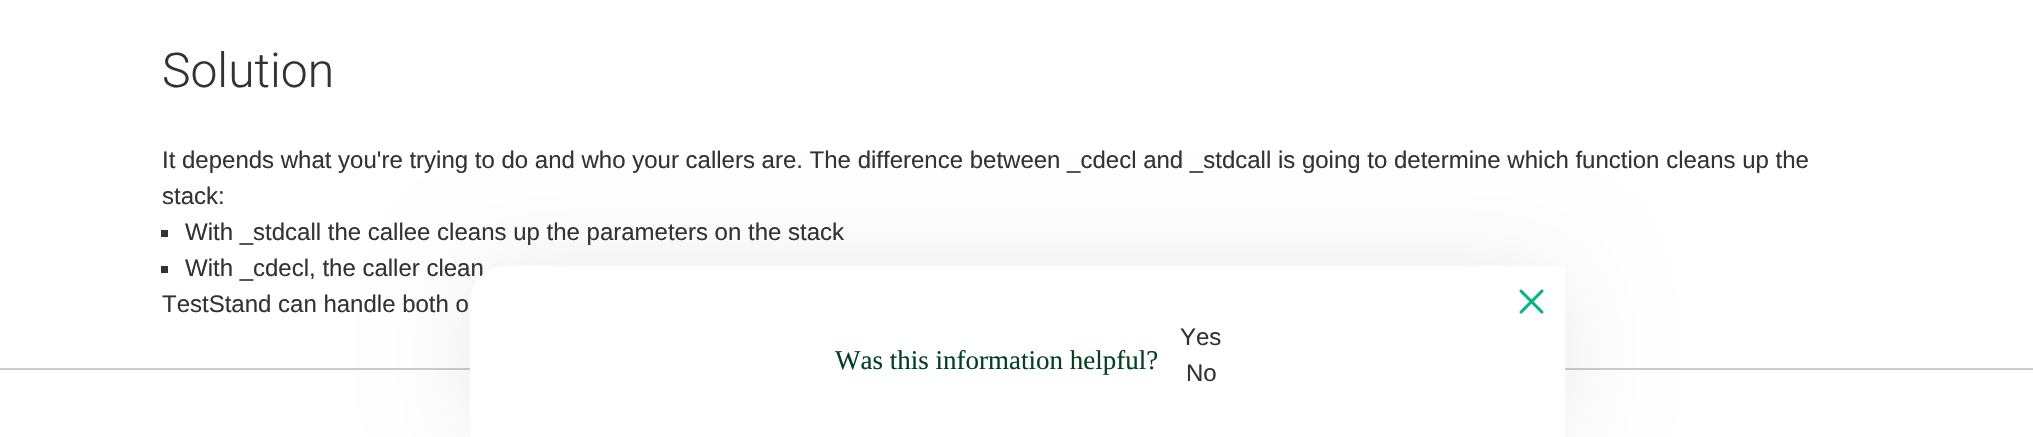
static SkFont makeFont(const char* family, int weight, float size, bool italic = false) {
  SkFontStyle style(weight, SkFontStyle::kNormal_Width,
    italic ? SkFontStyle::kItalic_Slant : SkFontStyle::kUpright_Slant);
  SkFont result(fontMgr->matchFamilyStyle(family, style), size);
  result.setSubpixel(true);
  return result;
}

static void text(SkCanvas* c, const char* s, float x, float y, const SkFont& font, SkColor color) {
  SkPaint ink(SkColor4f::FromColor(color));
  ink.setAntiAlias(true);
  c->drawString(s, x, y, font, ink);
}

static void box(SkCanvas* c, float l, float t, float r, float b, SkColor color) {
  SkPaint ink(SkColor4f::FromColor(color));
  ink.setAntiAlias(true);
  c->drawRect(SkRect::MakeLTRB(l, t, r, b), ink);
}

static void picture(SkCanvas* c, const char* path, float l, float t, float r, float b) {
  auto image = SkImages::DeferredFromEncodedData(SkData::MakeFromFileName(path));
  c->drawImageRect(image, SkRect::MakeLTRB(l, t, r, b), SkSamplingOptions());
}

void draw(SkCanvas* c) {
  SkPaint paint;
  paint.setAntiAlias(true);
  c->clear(0xffffffff);
  SkFont face1 = makeFont("Roboto", 300, 48);
  text(c, "Solution", 162, 87, face1, 0xff333333);
  SkFont face2 = makeFont("Liberation Sans", 400, 24);
  text(c, "It depends what you're trying to do and who your callers are. The difference between _cdecl and _stdcall is going to determine which function cleans up the", 162, 168, face2, 0xff333333);
  text(c, "stack:", 162, 204, face2, 0xff333333);
  box(c, 161, 230, 168, 237, 0xff333333);
  text(c, "With _stdcall the callee cleans up the parameters on the stack", 185, 240, face2, 0xff333333);
  box(c, 161, 266, 168, 273, 0xff333333);
  text(c, "With _cdecl, the caller clean", 185, 276, face2, 0xff333333);
  text(c, "TestStand can handle both o", 162, 312, face2, 0xff333333);
  box(c, 0, 368, 2033, 370, 0xffcccccc);
  paint.setColor(0x14000000);
  paint.setMaskFilter(SkMaskFilter::MakeBlur(kNormal_SkBlurStyle, 48));
  c->drawRoundRect(SkRect::MakeLTRB(470, 269, 1565, 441), 36, 36, paint);
  paint.setMaskFilter(nullptr);
  paint.setColor(0xffffffff);
  c->drawPath(SkPathBuilder().moveTo(506, 266).lineTo(1565, 266).lineTo(1565, 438).lineTo(470, 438).lineTo(470, 302).cubicTo(470, 282, 486, 266, 506, 266).close().detach(), paint);
  picture(c, "img_01.png", 1519, 289, 1544, 314);
  SkFont face3 = makeFont("Liberation Serif", 400, 27);
  text(c, "Was this information helpful?", 835, 369, face3, 0xff044123);
  text(c, "Yes", 1180, 345, face2, 0xff333333);
  text(c, "No", 1186, 381, face2, 0xff333333);
}
